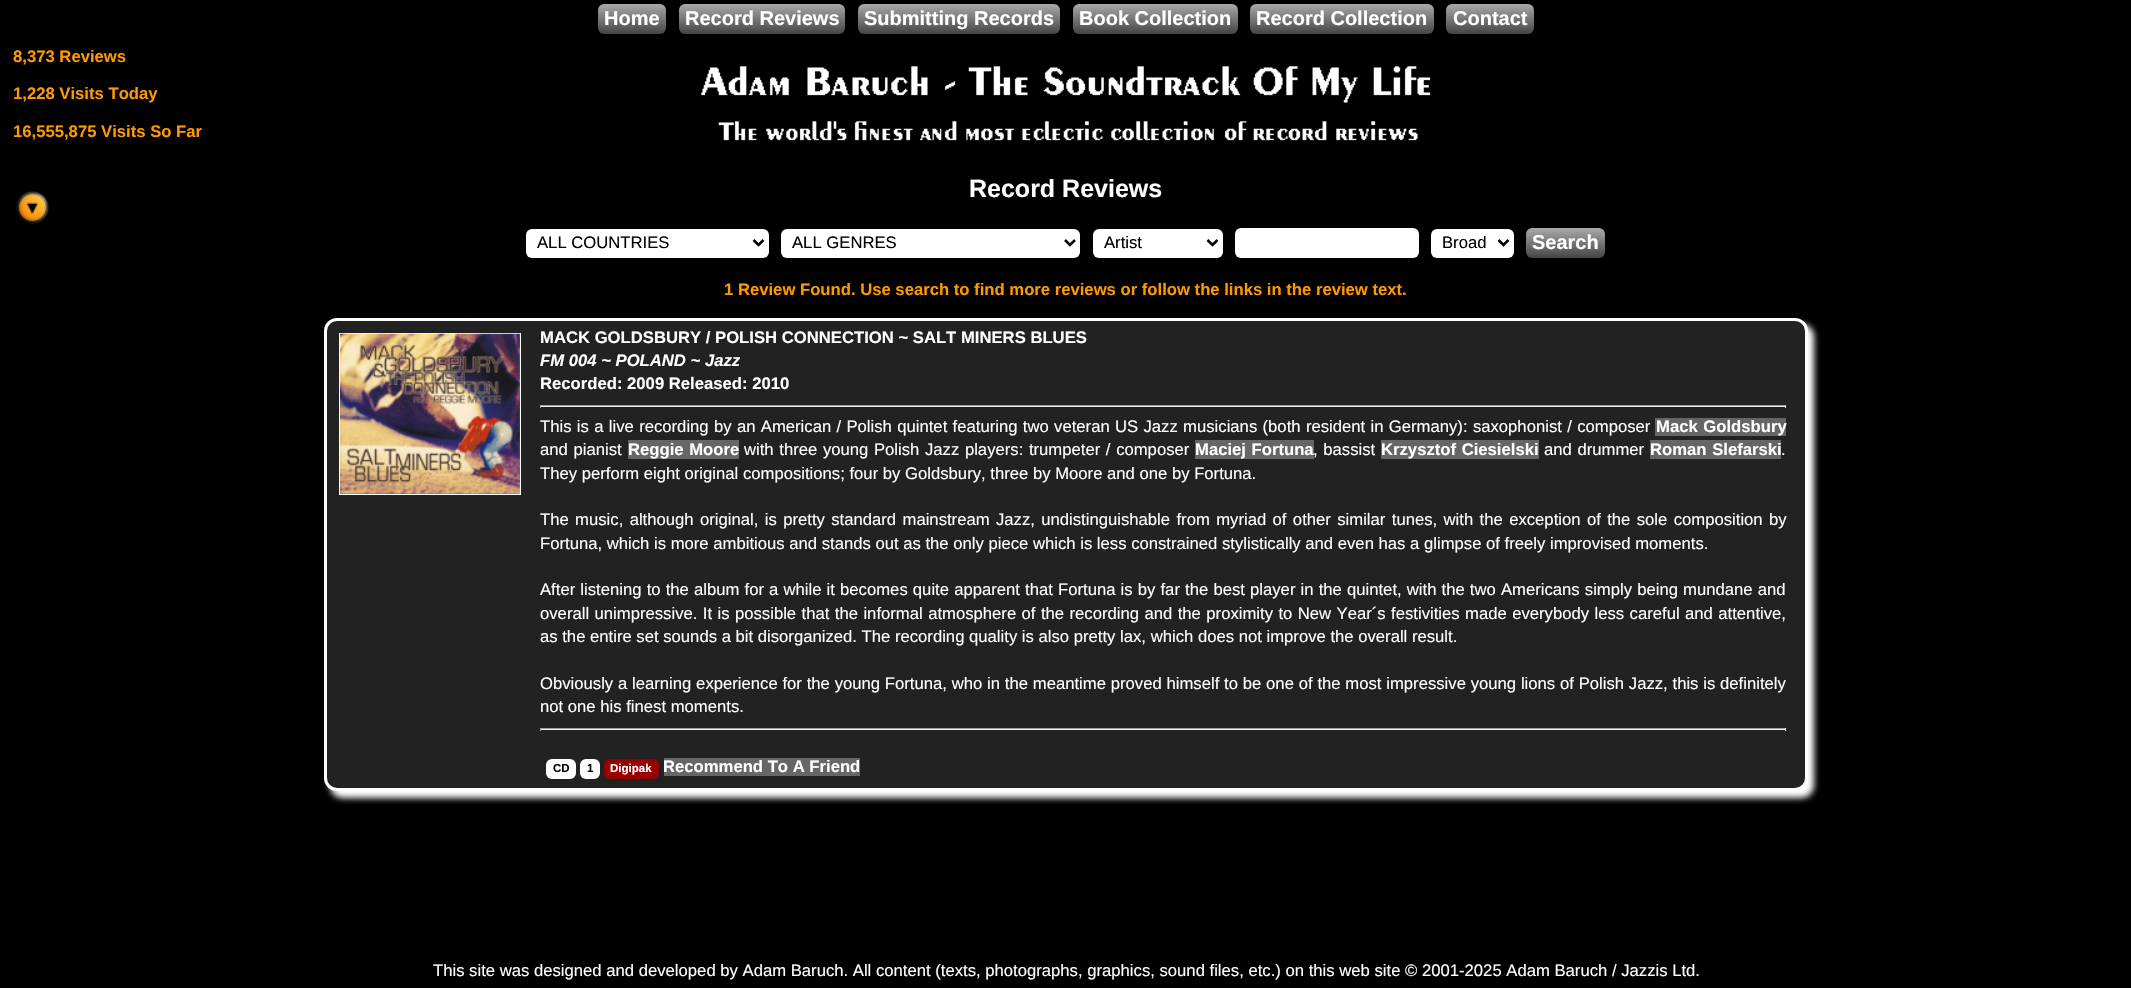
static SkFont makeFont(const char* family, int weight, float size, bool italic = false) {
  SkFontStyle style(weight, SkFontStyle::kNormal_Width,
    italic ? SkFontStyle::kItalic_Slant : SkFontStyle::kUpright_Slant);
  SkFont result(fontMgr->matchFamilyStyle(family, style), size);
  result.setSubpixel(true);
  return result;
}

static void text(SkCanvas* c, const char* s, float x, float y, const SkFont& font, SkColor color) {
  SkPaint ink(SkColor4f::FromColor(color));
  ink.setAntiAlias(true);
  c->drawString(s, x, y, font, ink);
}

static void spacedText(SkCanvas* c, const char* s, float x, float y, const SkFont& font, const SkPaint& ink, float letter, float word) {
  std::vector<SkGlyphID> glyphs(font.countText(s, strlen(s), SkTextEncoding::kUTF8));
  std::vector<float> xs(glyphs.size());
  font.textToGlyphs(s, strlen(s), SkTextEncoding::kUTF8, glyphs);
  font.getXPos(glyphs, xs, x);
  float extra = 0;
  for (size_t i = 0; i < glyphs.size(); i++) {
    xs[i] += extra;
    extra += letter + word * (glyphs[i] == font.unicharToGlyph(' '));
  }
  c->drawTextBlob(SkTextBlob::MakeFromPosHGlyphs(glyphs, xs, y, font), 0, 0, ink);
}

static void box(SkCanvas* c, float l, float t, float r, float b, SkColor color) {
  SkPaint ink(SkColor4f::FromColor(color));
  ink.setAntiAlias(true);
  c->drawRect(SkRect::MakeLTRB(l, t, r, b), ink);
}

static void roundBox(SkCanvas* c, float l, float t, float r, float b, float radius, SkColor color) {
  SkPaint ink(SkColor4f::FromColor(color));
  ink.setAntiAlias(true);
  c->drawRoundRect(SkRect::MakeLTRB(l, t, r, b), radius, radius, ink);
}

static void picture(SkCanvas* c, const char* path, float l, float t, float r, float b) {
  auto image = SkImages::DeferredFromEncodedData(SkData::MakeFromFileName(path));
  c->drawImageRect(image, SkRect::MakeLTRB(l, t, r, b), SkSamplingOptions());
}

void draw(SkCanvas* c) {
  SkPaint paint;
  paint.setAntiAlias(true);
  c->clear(0xff000000);
  {
    const SkColor colors[] = {0xffaaaaaa, 0xff444444};
    const float stops[] = {0, 1};
    const SkPoint ends[] = {{632, 3.7f}, {632, 34}};
    paint.setShader(SkGradientShader::MakeLinear(ends, colors, stops, 2, SkTileMode::kClamp));
    paint.setAlpha(255);
  }
  c->drawRoundRect(SkRect::MakeLTRB(598, 4, 666, 34), 6, 6, paint);
  SkFont face1 = makeFont("Liberation Sans", 700, 20);
  text(c, "Home", 604, 25, face1, 0xffffffff);
  {
    const SkColor colors[] = {0xffaaaaaa, 0xff444444};
    const float stops[] = {0, 1};
    const SkPoint ends[] = {{762, 3.7f}, {762, 34}};
    paint.setShader(SkGradientShader::MakeLinear(ends, colors, stops, 2, SkTileMode::kClamp));
    paint.setAlpha(255);
  }
  c->drawRoundRect(SkRect::MakeLTRB(679, 4, 845, 34), 6, 6, paint);
  text(c, "Record Reviews", 685, 25, face1, 0xffffffff);
  {
    const SkColor colors[] = {0xffaaaaaa, 0xff444444};
    const float stops[] = {0, 1};
    const SkPoint ends[] = {{959, 3.7f}, {959, 34}};
    paint.setShader(SkGradientShader::MakeLinear(ends, colors, stops, 2, SkTileMode::kClamp));
    paint.setAlpha(255);
  }
  c->drawRoundRect(SkRect::MakeLTRB(858, 4, 1060, 34), 6, 6, paint);
  text(c, "Submitting Records", 864, 25, face1, 0xffffffff);
  {
    const SkColor colors[] = {0xffaaaaaa, 0xff444444};
    const float stops[] = {0, 1};
    const SkPoint ends[] = {{1155, 3.7f}, {1155, 34}};
    paint.setShader(SkGradientShader::MakeLinear(ends, colors, stops, 2, SkTileMode::kClamp));
    paint.setAlpha(255);
  }
  c->drawRoundRect(SkRect::MakeLTRB(1073, 4, 1238, 34), 6, 6, paint);
  text(c, "Book Collection", 1079, 25, face1, 0xffffffff);
  {
    const SkColor colors[] = {0xffaaaaaa, 0xff444444};
    const float stops[] = {0, 1};
    const SkPoint ends[] = {{1342, 3.7f}, {1342, 34}};
    paint.setShader(SkGradientShader::MakeLinear(ends, colors, stops, 2, SkTileMode::kClamp));
    paint.setAlpha(255);
  }
  c->drawRoundRect(SkRect::MakeLTRB(1250, 4, 1434, 34), 6, 6, paint);
  text(c, "Record Collection", 1256, 25, face1, 0xffffffff);
  {
    const SkColor colors[] = {0xffaaaaaa, 0xff444444};
    const float stops[] = {0, 1};
    const SkPoint ends[] = {{1490, 3.7f}, {1490, 34}};
    paint.setShader(SkGradientShader::MakeLinear(ends, colors, stops, 2, SkTileMode::kClamp));
    paint.setAlpha(255);
  }
  c->drawRoundRect(SkRect::MakeLTRB(1446, 4, 1534, 34), 6, 6, paint);
  text(c, "Contact", 1453, 25, face1, 0xffffffff);
  SkFont face2 = makeFont("Liberation Sans", 700, 16.67f);
  text(c, "8,373 Reviews", 13, 62, face2, 0xffff9900);
  text(c, "1,228 Visits Today", 13, 99, face2, 0xffff9900);
  text(c, "16,555,875 Visits So Far", 13, 137, face2, 0xffff9900);
  picture(c, "img_01.png", 16, 191, 49, 224);
  picture(c, "img_02.png", 701, 66, 1431, 103);
  picture(c, "img_03.png", 718, 121, 1418, 141);
  SkFont face3 = makeFont("Liberation Sans", 700, 25);
  text(c, "Record Reviews", 969, 197, face3, 0xffffffff);
  roundBox(c, 526, 229, 769, 258, 6, 0xffffffff);
  paint.setStyle(SkPaint::kStroke_Style);
  paint.setStrokeWidth(2.5f);
  paint.setShader(nullptr);
  paint.setColor(0xff000000);
  c->drawPath(SkPathBuilder().moveTo(753.5f, 240).lineTo(758.5f, 245).lineTo(763.5f, 240).detach(), paint);
  SkFont face4 = makeFont("Liberation Sans", 400, 16.67f);
  text(c, "ALL COUNTRIES", 537, 248, face4, 0xff000000);
  roundBox(c, 781, 229, 1080, 258, 6, 0xffffffff);
  c->drawPath(SkPathBuilder().moveTo(1065, 240).lineTo(1070, 245).lineTo(1075, 240).detach(), paint);
  text(c, "ALL GENRES", 792, 248, face4, 0xff000000);
  roundBox(c, 1093, 229, 1223, 258, 6, 0xffffffff);
  c->drawPath(SkPathBuilder().moveTo(1207.5f, 240).lineTo(1212.5f, 245).lineTo(1217.5f, 240).detach(), paint);
  text(c, "Artist", 1104, 248, face4, 0xff000000);
  roundBox(c, 1235, 228, 1419, 258, 6, 0xffffffff);
  roundBox(c, 1431, 229, 1514, 258, 6, 0xffffffff);
  c->drawPath(SkPathBuilder().moveTo(1498.5f, 240).lineTo(1503.5f, 245).lineTo(1508.5f, 240).detach(), paint);
  text(c, "Broad", 1442, 248, face4, 0xff000000);
  paint.setStyle(SkPaint::kFill_Style);
  {
    const SkColor colors[] = {0xffaaaaaa, 0xff444444};
    const float stops[] = {0, 1};
    const SkPoint ends[] = {{1566, 228}, {1566, 258}};
    paint.setShader(SkGradientShader::MakeLinear(ends, colors, stops, 2, SkTileMode::kClamp));
    paint.setAlpha(255);
  }
  c->drawRoundRect(SkRect::MakeLTRB(1526, 228, 1605, 258), 6, 6, paint);
  text(c, "Search", 1532, 249, face1, 0xffffffff);
  text(c, "1 Review Found. Use search to find more reviews or follow the links in the review text.", 724, 295, face2, 0xffff9900);
  paint.setShader(nullptr);
  paint.setColor(0xffffffff);
  paint.setMaskFilter(SkMaskFilter::MakeBlur(kNormal_SkBlurStyle, 3));
  c->drawRoundRect(SkRect::MakeLTRB(330, 324, 1814, 798), 13, 13, paint);
  paint.setMaskFilter(nullptr);
  paint.setColor(0xff222222);
  c->drawRoundRect(SkRect::MakeLTRB(325.5f, 319.5f, 1806.5f, 789.5f), 11.5f, 11.5f, paint);
  paint.setStyle(SkPaint::kStroke_Style);
  paint.setStrokeWidth(3);
  paint.setColor(0xffffffff);
  c->drawRoundRect(SkRect::MakeLTRB(325.5f, 319.5f, 1806.5f, 789.5f), 11.5f, 11.5f, paint);
  paint.setStrokeWidth(1);
  c->drawRect(SkRect::MakeLTRB(339.5f, 333.5f, 520.5f, 494.5f), paint);
  picture(c, "img_04.png", 340, 333, 520, 494);
  text(c, "MACK GOLDSBURY / POLISH CONNECTION ~ SALT MINERS BLUES", 540, 343, face2, 0xffffffff);
  SkFont face5 = makeFont("Liberation Sans", 700, 16.67f, true);
  text(c, "FM 004 ~ POLAND ~ Jazz", 540, 366, face5, 0xffffffff);
  text(c, "Recorded: 2009 Released: 2010", 540, 389, face2, 0xffffffff);
  box(c, 540, 405, 1786, 406, 0xff9f9f9f);
  box(c, 1785, 405, 1786, 408, 0xffeeeeee);
  box(c, 540, 406, 1786, 407, 0xffeeeeee);
  box(c, 540, 405, 541, 408, 0xff9f9f9f);
  paint.setStyle(SkPaint::kFill_Style);
  spacedText(c, "This is a live recording by an American / Polish quintet featuring two veteran US Jazz musicians (both resident in Germany): saxophonist / composer", 540, 432, face4, paint, 0, 0.7f);
  box(c, 1655, 418, 1786, 436, 0xff666666);
  spacedText(c, "Mack Goldsbury", 1656, 432, face2, paint, 0, 1);
  spacedText(c, "and pianist", 540, 455, face4, paint, 0, 1);
  box(c, 628, 440, 739, 459, 0xff666666);
  spacedText(c, "Reggie Moore", 628, 455, face2, paint, 0, 1);
  spacedText(c, "with three young Polish Jazz players: trumpeter / composer", 744, 455, face4, paint, 0, 1);
  box(c, 1195, 440, 1314, 459, 0xff666666);
  spacedText(c, "Maciej Fortuna", 1195, 455, face2, paint, 0, 1);
  spacedText(c, ", bassist", 1313, 455, face4, paint, 0, 1);
  box(c, 1381, 440, 1539, 459, 0xff666666);
  spacedText(c, "Krzysztof Ciesielski", 1381, 455, face2, paint, 0, 1);
  spacedText(c, "and drummer", 1544, 455, face4, paint, 0, 1);
  box(c, 1650, 440, 1781, 459, 0xff666666);
  spacedText(c, "Roman Slefarski", 1650, 455, face2, paint, 0, 1);
  text(c, ".", 1781, 455, face4, 0xffffffff);
  text(c, "They perform eight original compositions; four by Goldsbury, three by Moore and one by Fortuna.", 540, 479, face4, 0xffffffff);
  spacedText(c, "The music, although original, is pretty standard mainstream Jazz, undistinguishable from myriad of other similar tunes, with the exception of the sole composition by", 540, 525, face4, paint, 0, 1.75f);
  text(c, "Fortuna, which is more ambitious and stands out as the only piece which is less constrained stylistically and even has a glimpse of freely improvised moments.", 540, 549, face4, 0xffffffff);
  spacedText(c, "After listening to the album for a while it becomes quite apparent that Fortuna is by far the best player in the quintet, with the two Americans simply being mundane and", 540, 595, face4, paint, 0, 0.5f);
  spacedText(c, "overall unimpressive. It is possible that the informal atmosphere of the recording and the proximity to New Year´s festivities made everybody less careful and attentive,", 540, 619, face4, paint, 0, 0.8f);
  text(c, "as the entire set sounds a bit disorganized. The recording quality is also pretty lax, which does not improve the overall result.", 540, 642, face4, 0xffffffff);
  spacedText(c, "Obviously a learning experience for the young Fortuna, who in the meantime proved himself to be one of the most impressive young lions of Polish Jazz, this is definitely", 540, 689, face4, paint, 0, 0.15f);
  text(c, "not one his finest moments.", 540, 712, face4, 0xffffffff);
  box(c, 540, 728, 1786, 729, 0xff9f9f9f);
  box(c, 1785, 728, 1786, 731, 0xffeeeeee);
  box(c, 540, 729, 1786, 730, 0xffeeeeee);
  box(c, 540, 728, 541, 731, 0xff9f9f9f);
  roundBox(c, 546, 759, 576, 779, 6, 0xffffffff);
  SkFont face6 = makeFont("Liberation Sans", 700, 11.5f);
  text(c, "CD", 553, 772, face6, 0xff000000);
  roundBox(c, 580, 759, 600, 779, 6, 0xffffffff);
  text(c, "1", 587, 772, face6, 0xff000000);
  roundBox(c, 604, 759, 659, 779, 6, 0xff990000);
  text(c, "Digipak", 610, 772, face6, 0xffffffff);
  box(c, 664, 758, 860, 776, 0xff666666);
  text(c, "Recommend To A Friend", 663, 772, face2, 0xffffffff);
  text(c, "This site was designed and developed by Adam Baruch. All content (texts, photographs, graphics, sound files, etc.) on this web site © 2001-2025 Adam Baruch / Jazzis Ltd.", 433, 976, face4, 0xffffffff);
}
